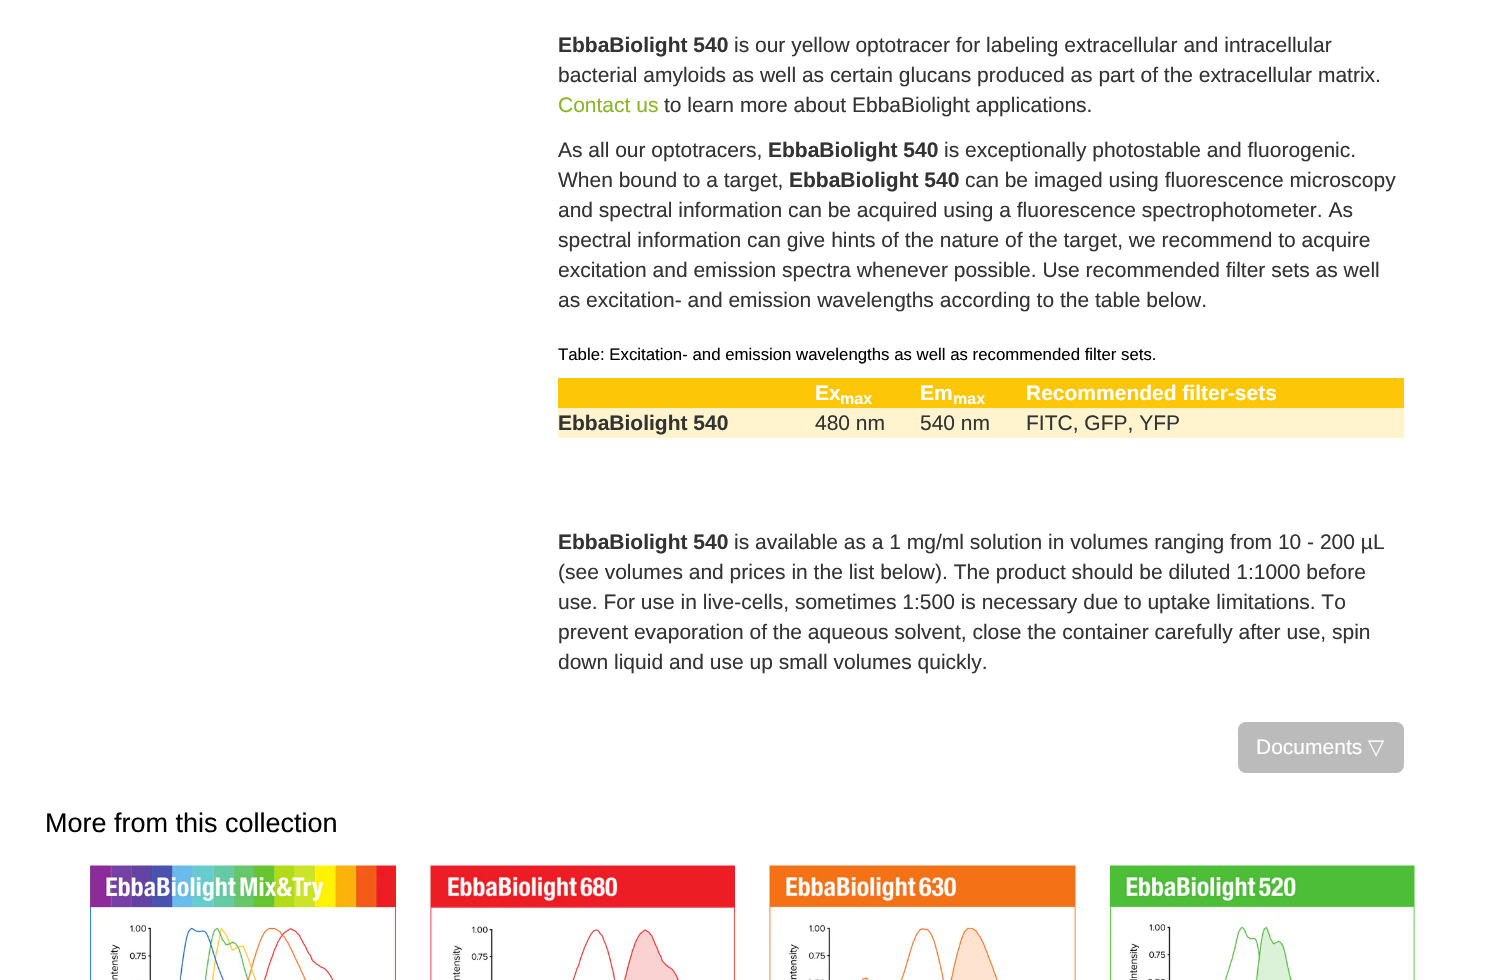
static SkFont makeFont(const char* family, int weight, float size, bool italic = false) {
  SkFontStyle style(weight, SkFontStyle::kNormal_Width,
    italic ? SkFontStyle::kItalic_Slant : SkFontStyle::kUpright_Slant);
  SkFont result(fontMgr->matchFamilyStyle(family, style), size);
  result.setSubpixel(true);
  return result;
}

static void text(SkCanvas* c, const char* s, float x, float y, const SkFont& font, SkColor color) {
  SkPaint ink(SkColor4f::FromColor(color));
  ink.setAntiAlias(true);
  c->drawString(s, x, y, font, ink);
}

static void box(SkCanvas* c, float l, float t, float r, float b, SkColor color) {
  SkPaint ink(SkColor4f::FromColor(color));
  ink.setAntiAlias(true);
  c->drawRect(SkRect::MakeLTRB(l, t, r, b), ink);
}

static void roundBox(SkCanvas* c, float l, float t, float r, float b, float radius, SkColor color) {
  SkPaint ink(SkColor4f::FromColor(color));
  ink.setAntiAlias(true);
  c->drawRoundRect(SkRect::MakeLTRB(l, t, r, b), radius, radius, ink);
}

static void picture(SkCanvas* c, const char* path, float l, float t, float r, float b) {
  auto image = SkImages::DeferredFromEncodedData(SkData::MakeFromFileName(path));
  c->drawImageRect(image, SkRect::MakeLTRB(l, t, r, b), SkSamplingOptions());
}

void draw(SkCanvas* c) {
  SkPaint paint;
  paint.setAntiAlias(true);
  c->clear(0xffffffff);
  SkFont face1 = makeFont("Liberation Sans", 700, 21);
  text(c, "EbbaBiolight 540", 558, 52, face1, 0xff333333);
  SkFont face2 = makeFont("Liberation Sans", 400, 21);
  text(c, "is our yellow optotracer for labeling extracellular and intracellular", 734, 52, face2, 0xff333333);
  text(c, "bacterial amyloids as well as certain glucans produced as part of the extracellular matrix.", 558, 82, face2, 0xff333333);
  text(c, "Contact us", 558, 112, face2, 0xff88b725);
  text(c, "to learn more about EbbaBiolight applications.", 664, 112, face2, 0xff333333);
  text(c, "As all our optotracers,", 558, 157, face2, 0xff333333);
  text(c, "EbbaBiolight 540", 768, 157, face1, 0xff333333);
  text(c, "is exceptionally photostable and fluorogenic.", 944, 157, face2, 0xff333333);
  text(c, "When bound to a target,", 558, 187, face2, 0xff333333);
  text(c, "EbbaBiolight 540", 789, 187, face1, 0xff333333);
  text(c, "can be imaged using fluorescence microscopy", 965, 187, face2, 0xff333333);
  text(c, "and spectral information can be acquired using a fluorescence spectrophotometer. As", 558, 217, face2, 0xff333333);
  text(c, "spectral information can give hints of the nature of the target, we recommend to acquire", 558, 247, face2, 0xff333333);
  text(c, "excitation and emission spectra whenever possible. Use recommended filter sets as well", 558, 277, face2, 0xff333333);
  text(c, "as excitation- and emission wavelengths according to the table below.", 558, 307, face2, 0xff333333);
  SkFont face3 = makeFont("Liberation Sans", 400, 16.8f);
  text(c, "Table: Excitation- and emission wavelengths as well as recommended filter sets.", 558, 360, face3, 0xff000000);
  box(c, 558, 378, 1404, 408, 0xfffdc707);
  text(c, "Ex", 815, 400, face1, 0xffffffff);
  SkFont face4 = makeFont("Liberation Sans", 700, 16);
  text(c, "max", 840, 404, face4, 0xffffffff);
  text(c, "Em", 920, 400, face1, 0xffffffff);
  text(c, "max", 953, 404, face4, 0xffffffff);
  text(c, "Recommended filter-sets", 1026, 400, face1, 0xffffffff);
  box(c, 558, 408, 1404, 438, 0xfffff4cd);
  text(c, "EbbaBiolight 540", 558, 430, face1, 0xff333333);
  text(c, "480 nm", 815, 430, face2, 0xff333333);
  text(c, "540 nm", 920, 430, face2, 0xff333333);
  text(c, "FITC, GFP, YFP", 1026, 430, face2, 0xff333333);
  text(c, "EbbaBiolight 540", 558, 549, face1, 0xff333333);
  text(c, "is available as a 1 mg/ml solution in volumes ranging from 10 - 200 µL", 734, 549, face2, 0xff333333);
  text(c, "(see volumes and prices in the list below). The product should be diluted 1:1000 before", 558, 579, face2, 0xff333333);
  text(c, "use. For use in live-cells, sometimes 1:500 is necessary due to uptake limitations. To", 558, 609, face2, 0xff333333);
  text(c, "prevent evaporation of the aqueous solvent, close the container carefully after use, spin", 558, 639, face2, 0xff333333);
  text(c, "down liquid and use up small volumes quickly.", 558, 669, face2, 0xff333333);
  roundBox(c, 1238, 722, 1404, 773, 8, 0xffbbbbbb);
  text(c, "Documents", 1256, 754, face2, 0xffffffff);
  SkFont face5 = makeFont("DejaVu Sans", 400, 21);
  text(c, "▽", 1368, 754, face5, 0xffffffff);
  SkFont face6 = makeFont("Liberation Sans", 400, 27);
  text(c, "More from this collection", 45, 832, face6, 0xff000000);
  picture(c, "img_01.png", 90, 865, 396, 980);
  picture(c, "img_02.png", 430, 865, 735, 980);
  picture(c, "img_03.png", 769, 865, 1076, 980);
  picture(c, "img_04.png", 1110, 865, 1415, 980);
}
